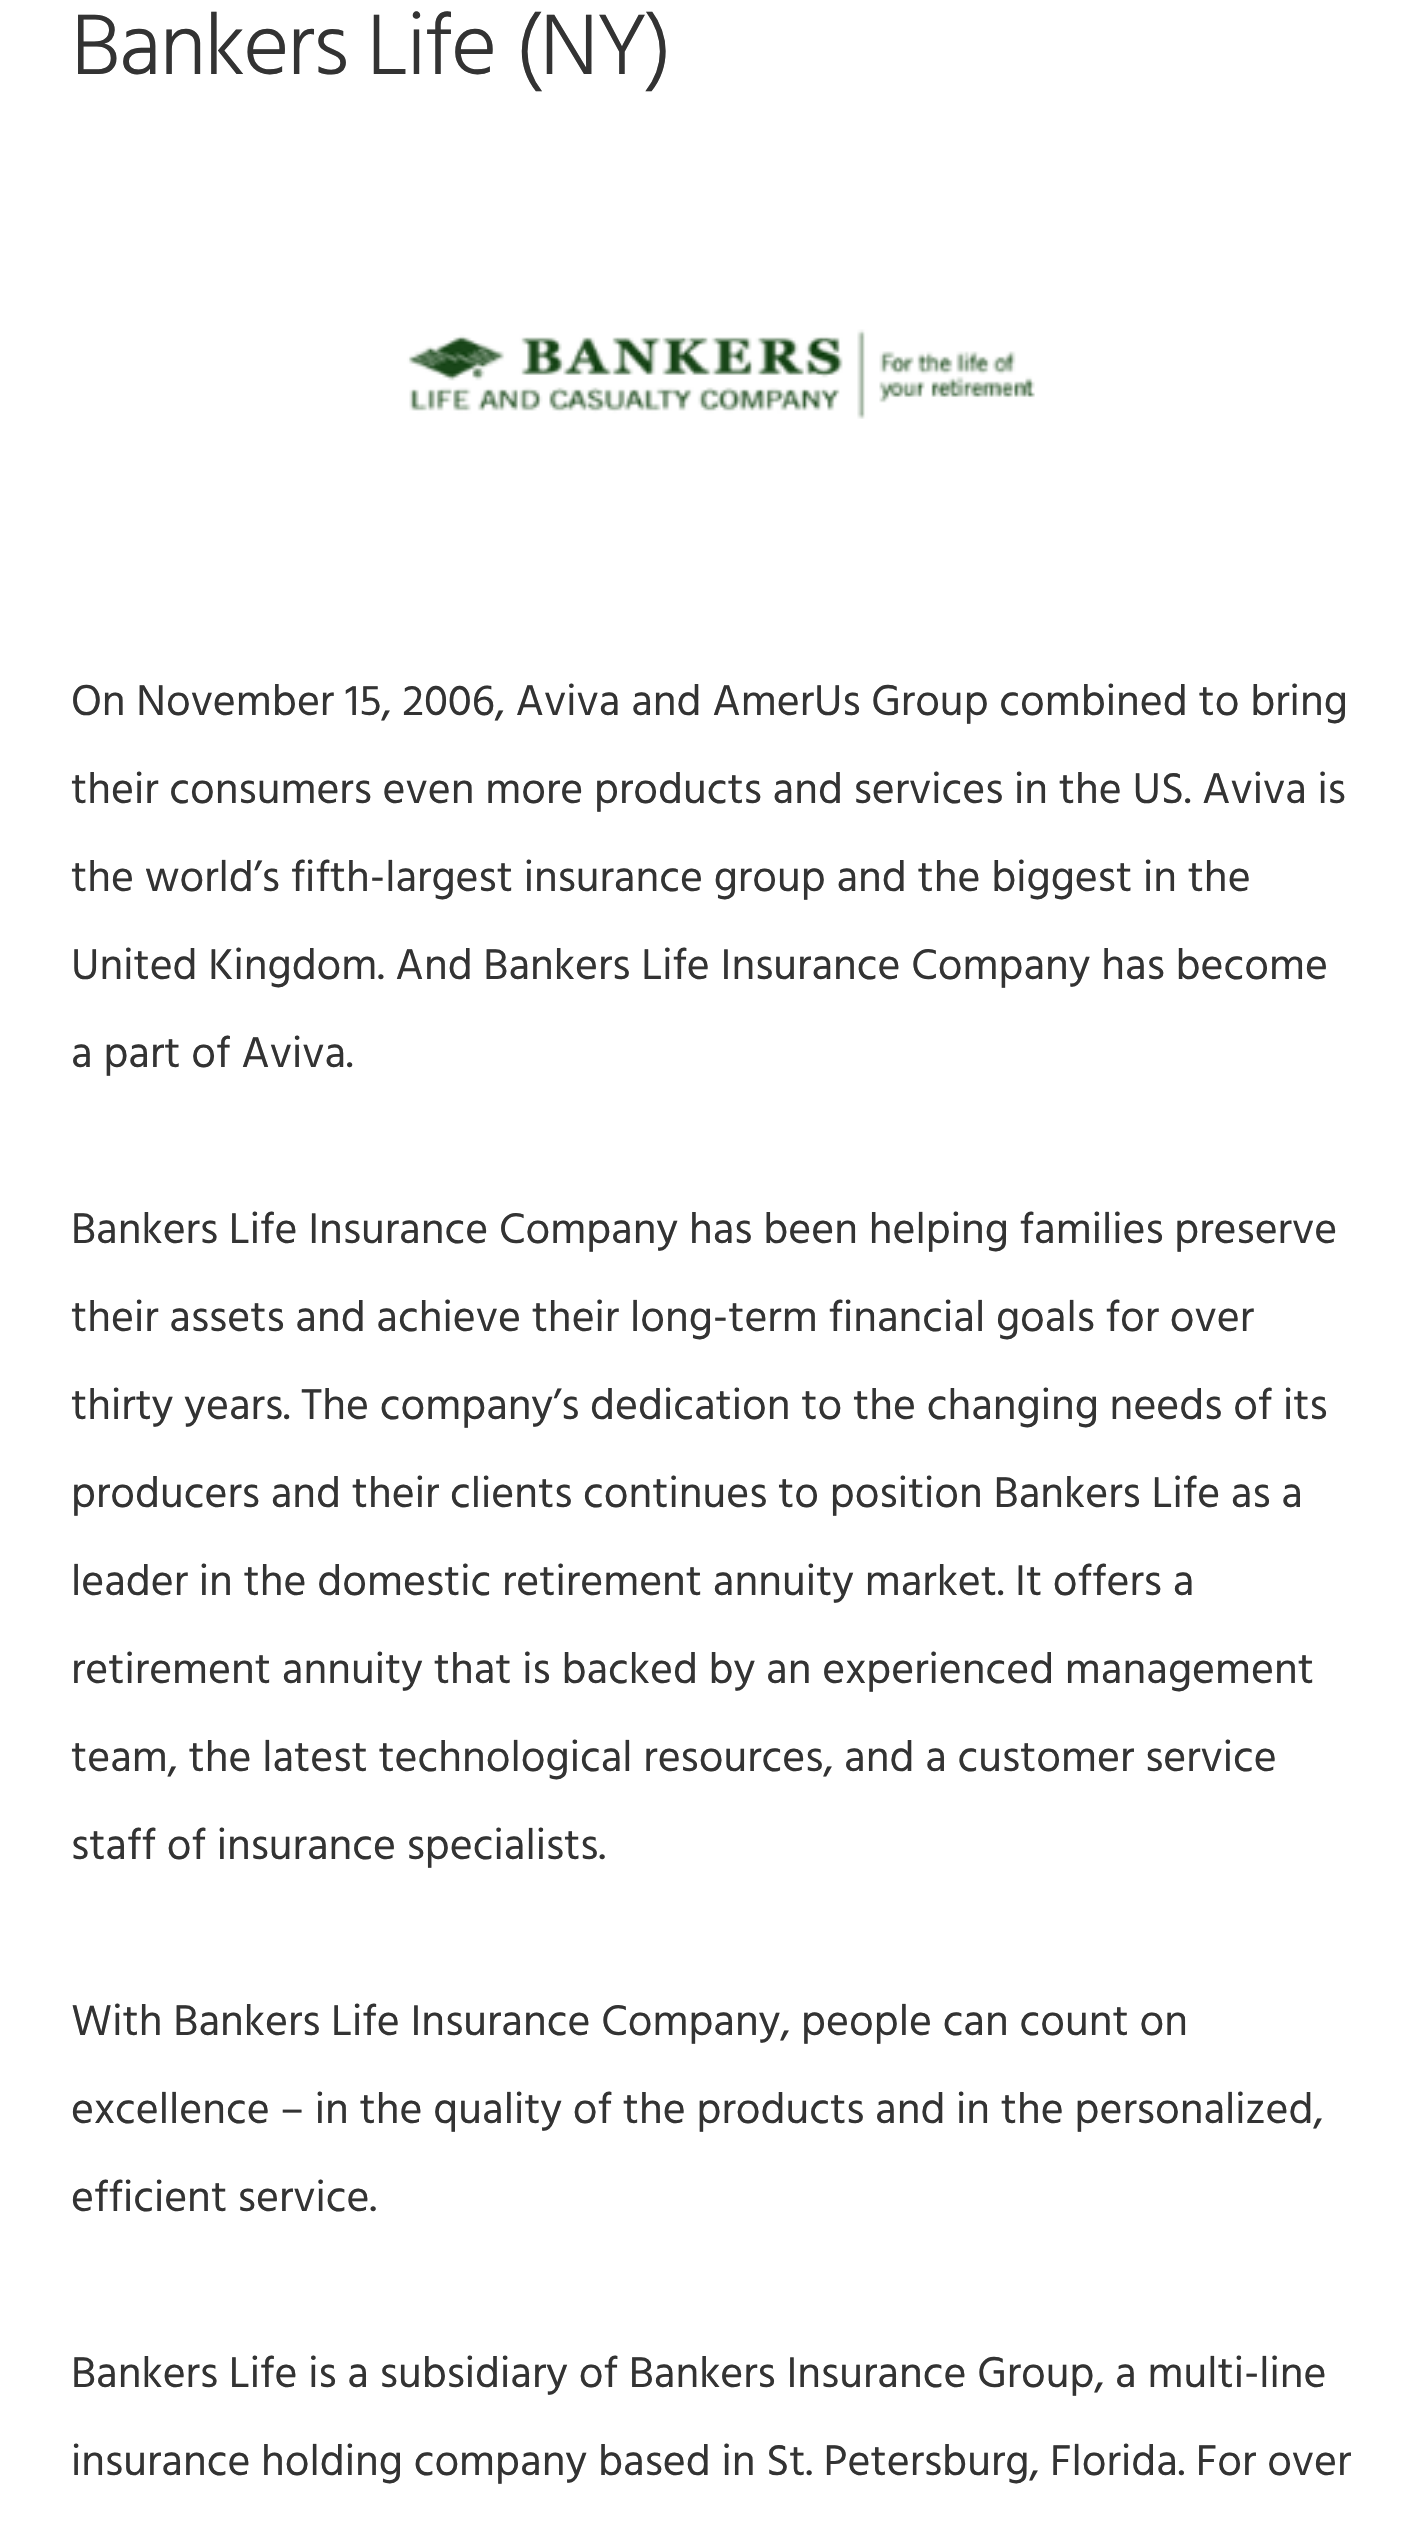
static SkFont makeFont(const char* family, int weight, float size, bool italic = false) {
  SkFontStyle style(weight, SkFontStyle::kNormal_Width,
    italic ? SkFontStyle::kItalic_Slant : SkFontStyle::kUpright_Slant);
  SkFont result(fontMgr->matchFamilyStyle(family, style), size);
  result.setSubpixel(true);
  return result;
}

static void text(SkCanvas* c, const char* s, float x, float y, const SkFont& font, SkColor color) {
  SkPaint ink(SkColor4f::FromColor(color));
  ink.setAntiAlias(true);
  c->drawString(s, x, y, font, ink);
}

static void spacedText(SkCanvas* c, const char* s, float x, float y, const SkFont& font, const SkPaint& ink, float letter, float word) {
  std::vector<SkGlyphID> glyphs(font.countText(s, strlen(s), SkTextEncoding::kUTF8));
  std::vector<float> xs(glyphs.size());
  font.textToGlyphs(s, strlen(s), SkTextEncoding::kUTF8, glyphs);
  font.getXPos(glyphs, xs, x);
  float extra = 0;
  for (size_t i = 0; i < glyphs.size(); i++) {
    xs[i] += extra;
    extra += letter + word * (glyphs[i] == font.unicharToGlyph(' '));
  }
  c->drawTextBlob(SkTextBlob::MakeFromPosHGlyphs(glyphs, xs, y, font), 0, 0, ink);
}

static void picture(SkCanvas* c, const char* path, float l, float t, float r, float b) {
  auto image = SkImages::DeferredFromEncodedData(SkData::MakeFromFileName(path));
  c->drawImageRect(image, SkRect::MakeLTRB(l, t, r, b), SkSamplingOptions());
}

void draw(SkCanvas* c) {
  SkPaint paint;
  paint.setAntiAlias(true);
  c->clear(0xffffffff);
  SkFont face1 = makeFont("Hind", 300, 88);
  paint.setColor(0xff333333);
  spacedText(c, "Bankers Life (NY)", 71, 74, face1, paint, -1.75f, 0);
  picture(c, "img_01.png", 407, 329, 1035, 419);
  SkFont face2 = makeFont("Hind", 400, 44);
  text(c, "On November 15, 2006, Aviva and AmerUs Group combined to bring", 71, 715, face2, 0xff333333);
  text(c, "their consumers even more products and services in the US. Aviva is", 71, 803, face2, 0xff333333);
  text(c, "the world’s fifth-largest insurance group and the biggest in the", 71, 891, face2, 0xff333333);
  text(c, "United Kingdom. And Bankers Life Insurance Company has become", 71, 979, face2, 0xff333333);
  text(c, "a part of Aviva.", 71, 1067, face2, 0xff333333);
  text(c, "Bankers Life Insurance Company has been helping families preserve", 71, 1243, face2, 0xff333333);
  text(c, "their assets and achieve their long-term financial goals for over", 71, 1331, face2, 0xff333333);
  text(c, "thirty years. The company’s dedication to the changing needs of its", 71, 1419, face2, 0xff333333);
  text(c, "producers and their clients continues to position Bankers Life as a", 71, 1507, face2, 0xff333333);
  text(c, "leader in the domestic retirement annuity market. It offers a", 71, 1595, face2, 0xff333333);
  text(c, "retirement annuity that is backed by an experienced management", 71, 1683, face2, 0xff333333);
  text(c, "team, the latest technological resources, and a customer service", 71, 1771, face2, 0xff333333);
  text(c, "staff of insurance specialists.", 71, 1859, face2, 0xff333333);
  text(c, "With Bankers Life Insurance Company, people can count on", 71, 2035, face2, 0xff333333);
  text(c, "excellence – in the quality of the products and in the personalized,", 71, 2123, face2, 0xff333333);
  text(c, "efficient service.", 71, 2211, face2, 0xff333333);
  text(c, "Bankers Life is a subsidiary of Bankers Insurance Group, a multi-line", 71, 2387, face2, 0xff333333);
  text(c, "insurance holding company based in St. Petersburg, Florida. For over", 71, 2475, face2, 0xff333333);
}
